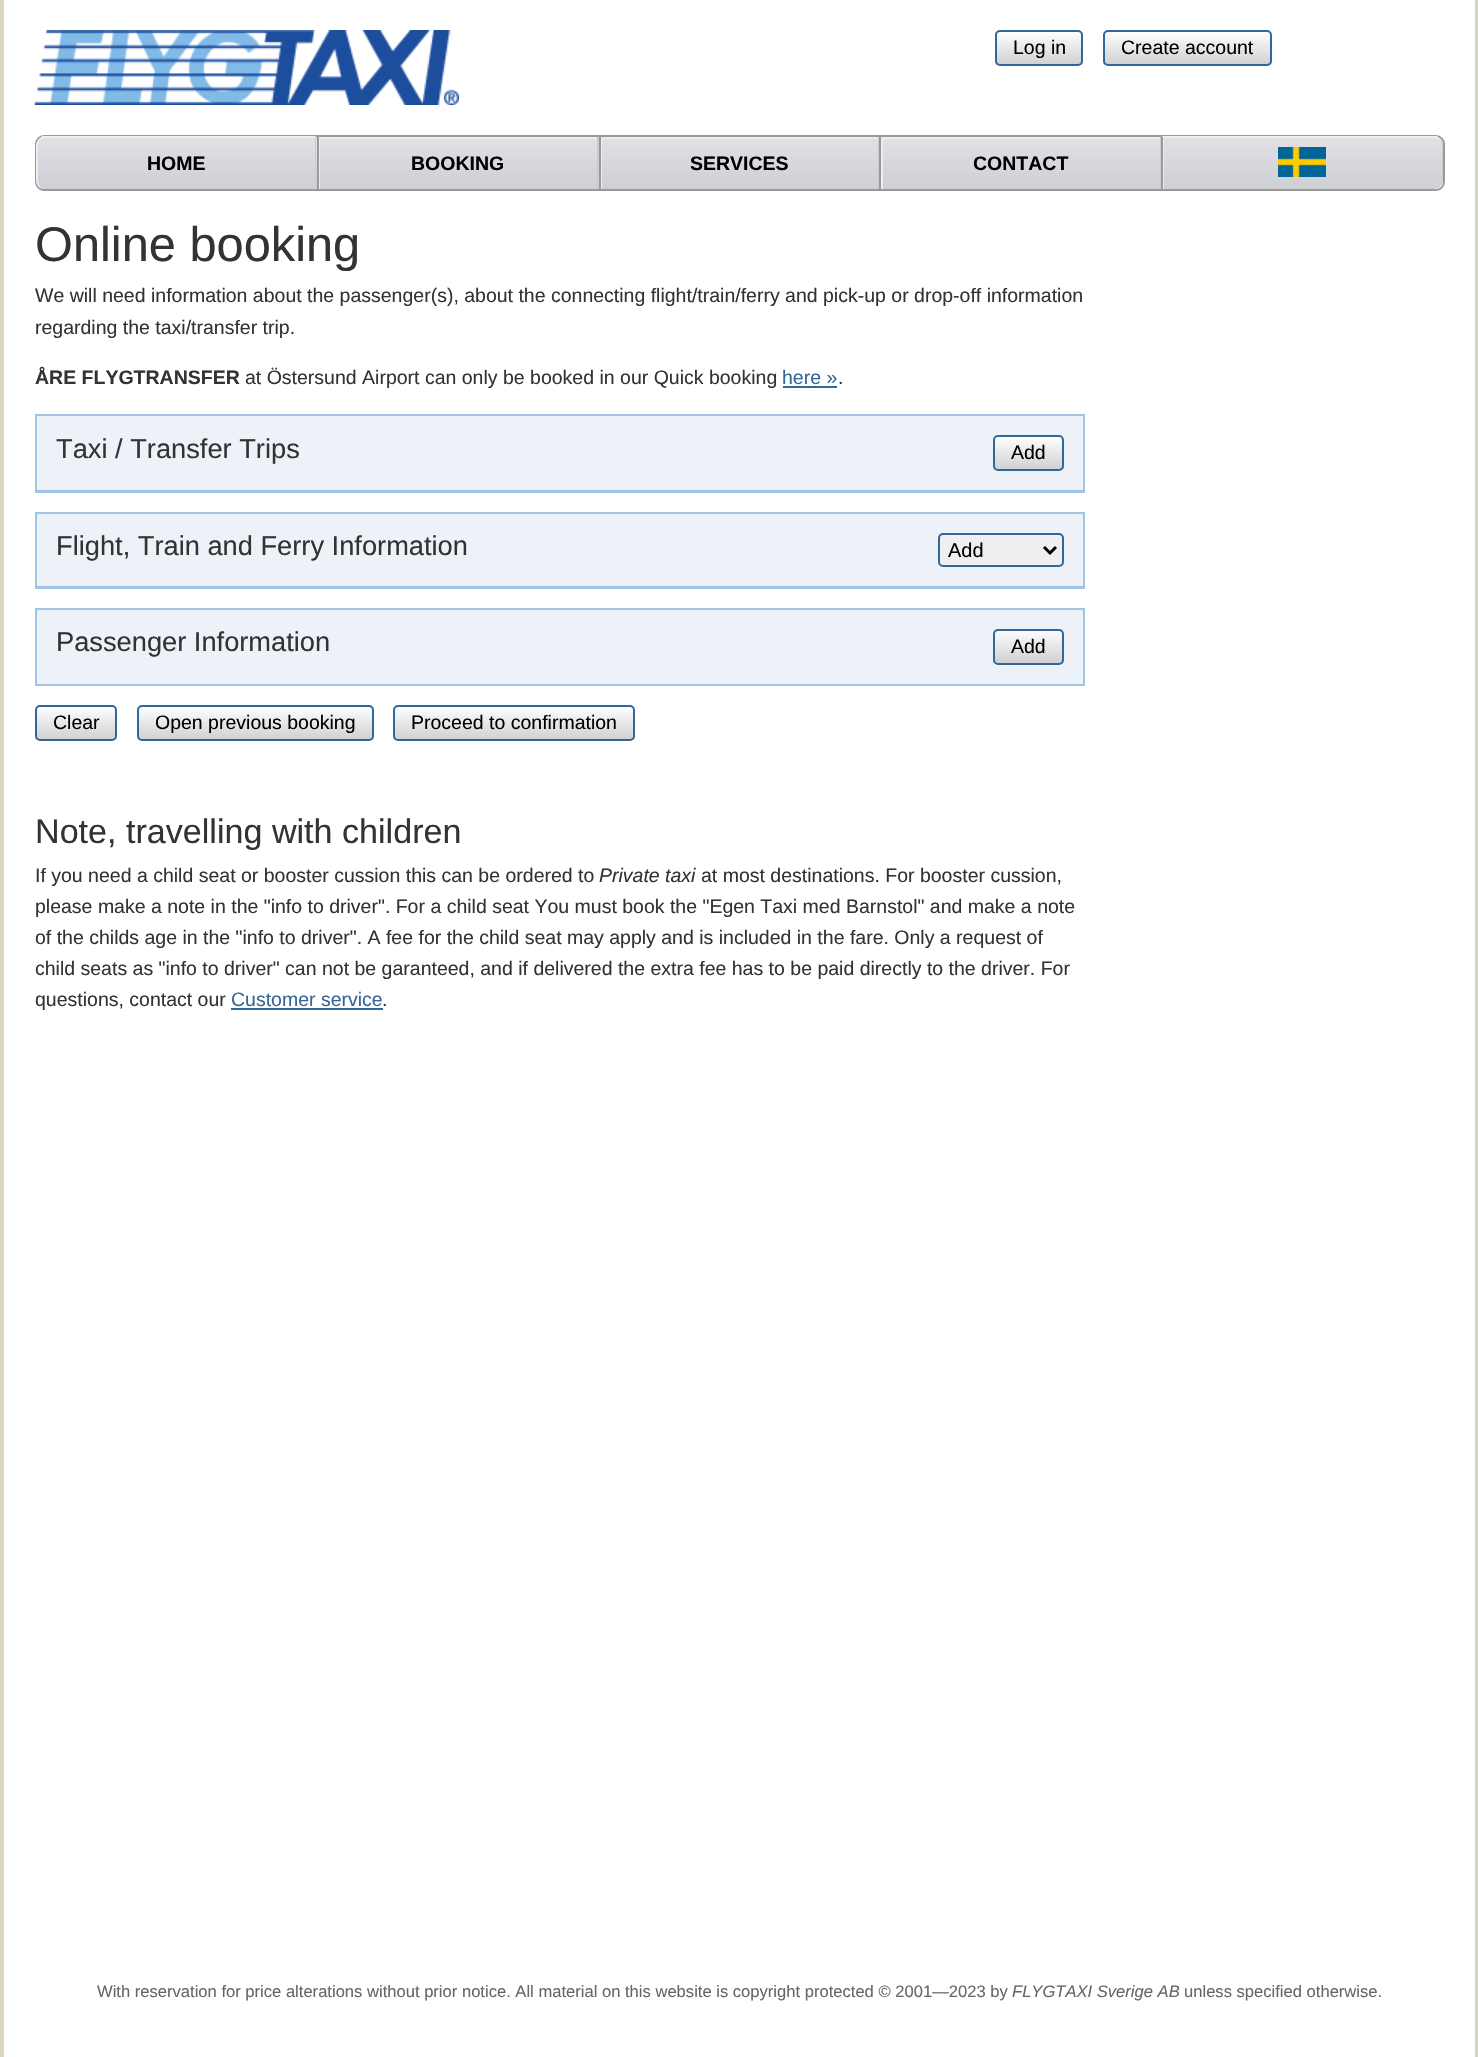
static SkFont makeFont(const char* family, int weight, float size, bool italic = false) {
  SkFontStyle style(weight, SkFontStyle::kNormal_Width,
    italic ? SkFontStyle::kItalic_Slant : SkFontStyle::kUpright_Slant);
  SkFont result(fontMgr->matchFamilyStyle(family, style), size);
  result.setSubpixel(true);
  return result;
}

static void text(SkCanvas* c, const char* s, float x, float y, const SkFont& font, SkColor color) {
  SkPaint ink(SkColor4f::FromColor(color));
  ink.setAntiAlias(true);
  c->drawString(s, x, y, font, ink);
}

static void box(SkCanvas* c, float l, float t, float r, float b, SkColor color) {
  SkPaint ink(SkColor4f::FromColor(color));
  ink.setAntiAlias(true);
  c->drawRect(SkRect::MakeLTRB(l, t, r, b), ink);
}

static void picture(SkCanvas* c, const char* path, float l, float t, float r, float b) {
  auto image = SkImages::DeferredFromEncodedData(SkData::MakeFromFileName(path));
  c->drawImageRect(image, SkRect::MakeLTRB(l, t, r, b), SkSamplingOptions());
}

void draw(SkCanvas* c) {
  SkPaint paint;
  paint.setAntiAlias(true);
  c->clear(0xffd9d5be);
  box(c, 4, 0, 1475, 2057, 0xffffffff);
  picture(c, "img_01.png", 34, 30, 459, 105);
  c->save();
  c->clipPath(SkPathBuilder().moveTo(1000, 30).lineTo(1078, 30).cubicTo(1081, 30, 1083, 32, 1083, 35).lineTo(1083, 61).cubicTo(1083, 64, 1081, 66, 1078, 66).lineTo(1000, 66).cubicTo(997, 66, 995, 64, 995, 61).lineTo(995, 35).cubicTo(995, 32, 997, 30, 1000, 30).close().detach(), true);
  {
    const SkColor colors[] = {0xfffefefe, 0xffd0d0d0};
    const float stops[] = {0, 1};
    const SkPoint ends[] = {{996, 32}, {996, 65}};
    paint.setShader(SkGradientShader::MakeLinear(ends, colors, stops, 2, SkTileMode::kClamp));
    paint.setAlpha(255);
  }
  c->drawRect(SkRect::MakeLTRB(995, 32, 1083, 65), paint);
  c->restore();
  paint.setStyle(SkPaint::kStroke_Style);
  paint.setStrokeWidth(2);
  paint.setShader(nullptr);
  paint.setColor(0xff336699);
  c->drawRoundRect(SkRect::MakeLTRB(996, 31, 1082, 65), 4, 4, paint);
  SkFont face1 = makeFont("Liberation Sans", 400, 19.5f);
  text(c, "Log in", 1013, 54, face1, 0xff000000);
  c->save();
  c->clipPath(SkPathBuilder().moveTo(1108, 30).lineTo(1267, 30).cubicTo(1270, 30, 1272, 32, 1272, 35).lineTo(1272, 61).cubicTo(1272, 64, 1270, 66, 1267, 66).lineTo(1108, 66).cubicTo(1105, 66, 1103, 64, 1103, 61).lineTo(1103, 35).cubicTo(1103, 32, 1105, 30, 1108, 30).close().detach(), true);
  paint.setStyle(SkPaint::kFill_Style);
  {
    const SkColor colors[] = {0xfffefefe, 0xffd0d0d0};
    const float stops[] = {0, 1};
    const SkPoint ends[] = {{1104, 32}, {1104, 65}};
    paint.setShader(SkGradientShader::MakeLinear(ends, colors, stops, 2, SkTileMode::kClamp));
    paint.setAlpha(255);
  }
  c->drawRect(SkRect::MakeLTRB(1103, 32, 1272, 65), paint);
  c->restore();
  paint.setStyle(SkPaint::kStroke_Style);
  paint.setShader(nullptr);
  paint.setColor(0xff336699);
  c->drawRoundRect(SkRect::MakeLTRB(1104, 31, 1271, 65), 4, 4, paint);
  text(c, "Create account", 1121, 54, face1, 0xff000000);
  paint.setColor(0xff999999);
  c->drawRoundRect(SkRect::MakeLTRB(36, 136, 1444, 190), 8, 8, paint);
  c->save();
  c->clipPath(SkPathBuilder().moveTo(45, 137).lineTo(317, 137).lineTo(317, 189).lineTo(45, 189).cubicTo(40, 189, 36, 185, 36, 180).lineTo(36, 146).cubicTo(36, 141, 40, 137, 45, 137).close().detach(), true);
  paint.setStyle(SkPaint::kFill_Style);
  {
    const SkColor colors[] = {0xffe0e0e5, 0xffceced5};
    const float stops[] = {0, 1};
    const SkPoint ends[] = {{38, 87}, {38, 138}};
    paint.setShader(SkGradientShader::MakeLinear(ends, colors, stops, 2, SkTileMode::kClamp));
    paint.setAlpha(255);
  }
  c->drawRect(SkRect::MakeLTRB(315, 137, 317, 138), paint);
  {
    const SkColor colors[] = {0xffe0e0e5, 0xffceced5};
    const float stops[] = {0, 1};
    const SkPoint ends[] = {{38, 138}, {38, 189}};
    paint.setShader(SkGradientShader::MakeLinear(ends, colors, stops, 2, SkTileMode::kClamp));
    paint.setAlpha(255);
  }
  c->drawPath(SkPathBuilder().moveTo(36, 138).lineTo(317, 138).lineTo(317, 189).lineTo(45, 189).cubicTo(40, 189, 36, 185, 36, 180).close().detach(), paint);
  c->restore();
  paint.setShader(nullptr);
  paint.setColor(0xffeeeeee);
  c->drawPath(SkPathBuilder().moveTo(45, 138).cubicTo(43, 138, 41, 139, 40, 140).lineTo(39, 139).lineTo(42, 136).lineTo(316, 136).lineTo(315, 138).close().detach(), paint);
  paint.setColor(0xffcccccc);
  c->drawPath(SkPathBuilder().moveTo(315, 189).lineTo(316, 189).lineTo(316, 137).lineTo(315, 138).close().detach(), paint);
  paint.setColor(0xffeeeeee);
  c->drawPath(SkPathBuilder().moveTo(36, 146).lineTo(36, 180).cubicTo(36, 185, 40, 189, 45, 189).cubicTo(41, 189, 38, 185, 38, 180).lineTo(38, 146).cubicTo(38, 144, 39, 142, 40, 140).lineTo(39, 139).cubicTo(37, 141, 36, 144, 36, 146).close().detach(), paint);
  SkFont face2 = makeFont("Liberation Sans", 700, 19.5f);
  text(c, "HOME", 147, 170, face2, 0xff000000);
  box(c, 318, 137, 599, 139, 0xffeeeeee);
  box(c, 317, 137, 319, 191, 0xff999999);
  {
    const SkColor colors[] = {0xffe0e0e5, 0xffceced5};
    const float stops[] = {0, 1};
    const SkPoint ends[] = {{320, 138}, {320, 189}};
    paint.setShader(SkGradientShader::MakeLinear(ends, colors, stops, 2, SkTileMode::kClamp));
    paint.setAlpha(255);
  }
  c->drawRect(SkRect::MakeLTRB(320, 139, 597, 189), paint);
  box(c, 597, 137, 599, 189, 0xffcccccc);
  box(c, 319, 137, 320, 189, 0xffeeeeee);
  text(c, "BOOKING", 411, 170, face2, 0xff000000);
  box(c, 600, 137, 879, 139, 0xffeeeeee);
  box(c, 599, 137, 601, 191, 0xff999999);
  {
    const SkColor colors[] = {0xffe0e0e5, 0xffceced5};
    const float stops[] = {0, 1};
    const SkPoint ends[] = {{602, 138}, {602, 189}};
    paint.setShader(SkGradientShader::MakeLinear(ends, colors, stops, 2, SkTileMode::kClamp));
    paint.setAlpha(255);
  }
  c->drawRect(SkRect::MakeLTRB(602, 139, 878, 189), paint);
  box(c, 878, 137, 879, 189, 0xffcccccc);
  box(c, 601, 137, 602, 189, 0xffeeeeee);
  text(c, "SERVICES", 690, 170, face2, 0xff000000);
  box(c, 879, 137, 881, 191, 0xff999999);
  {
    const SkColor colors[] = {0xffe0e0e5, 0xffceced5};
    const float stops[] = {0, 1};
    const SkPoint ends[] = {{882, 138}, {882, 189}};
    paint.setShader(SkGradientShader::MakeLinear(ends, colors, stops, 2, SkTileMode::kClamp));
    paint.setAlpha(255);
  }
  c->drawRect(SkRect::MakeLTRB(883, 139, 1160, 189), paint);
  box(c, 881, 137, 1161, 139, 0xffeeeeee);
  box(c, 1160, 137, 1161, 189, 0xffcccccc);
  box(c, 881, 137, 883, 189, 0xffeeeeee);
  text(c, "CONTACT", 973, 170, face2, 0xff000000);
  c->save();
  c->clipPath(SkPathBuilder().moveTo(1163, 137).lineTo(1434, 137).cubicTo(1439, 137, 1443, 141, 1443, 146).lineTo(1443, 180).cubicTo(1443, 185, 1439, 189, 1434, 189).lineTo(1163, 189).close().detach(), true);
  {
    const SkColor colors[] = {0xffe0e0e5, 0xffceced5};
    const float stops[] = {0, 1};
    const SkPoint ends[] = {{1164, 138}, {1164, 189}};
    paint.setShader(SkGradientShader::MakeLinear(ends, colors, stops, 2, SkTileMode::kClamp));
    paint.setAlpha(255);
  }
  c->drawPath(SkPathBuilder().moveTo(1163, 138).lineTo(1443, 138).lineTo(1443, 180).cubicTo(1443, 185, 1439, 189, 1434, 189).lineTo(1163, 189).close().detach(), paint);
  c->restore();
  paint.setShader(nullptr);
  paint.setColor(0xffeeeeee);
  c->drawPath(SkPathBuilder().moveTo(1164, 138).lineTo(1162, 136).lineTo(1437, 136).lineTo(1440, 139).lineTo(1439, 140).cubicTo(1438, 139, 1436, 138, 1434, 138).close().detach(), paint);
  c->drawPath(SkPathBuilder().moveTo(1164, 138).lineTo(1162, 136).lineTo(1162, 189).lineTo(1164, 189).close().detach(), paint);
  box(c, 1161, 137, 1163, 191, 0xff999999);
  paint.setColor(0xffcccccc);
  c->drawPath(SkPathBuilder().moveTo(1443, 180).lineTo(1443, 146).cubicTo(1443, 144, 1442, 141, 1440, 139).lineTo(1439, 140).cubicTo(1441, 141, 1442, 143, 1442, 146).lineTo(1442, 180).cubicTo(1442, 185, 1438, 189, 1434, 189).cubicTo(1439, 189, 1443, 185, 1443, 180).close().detach(), paint);
  picture(c, "img_02.png", 1278, 147, 1326, 177);
  SkFont face3 = makeFont("Liberation Sans", 400, 48.75f);
  text(c, "Online booking", 35, 261, face3, 0xff333333);
  text(c, "We will need information about the passenger(s), about the connecting flight/train/ferry and pick-up or drop-off information", 35, 302, face1, 0xff333333);
  text(c, "regarding the taxi/transfer trip.", 35, 334, face1, 0xff333333);
  text(c, "ÅRE FLYGTRANSFER", 35, 384, face2, 0xff333333);
  text(c, "at Östersund Airport can only be booked in our Quick booking", 245, 384, face1, 0xff333333);
  text(c, "here »", 782, 384, face1, 0xff336699);
  box(c, 783, 386, 837, 388, 0xff336699);
  text(c, ".", 838, 384, face1, 0xff333333);
  box(c, 35, 492, 1085, 493, 0xffa1c3e5);
  paint.setColor(0xffecf2f7);
  c->drawRect(SkRect::MakeLTRB(36, 415, 1084, 491), paint);
  paint.setStyle(SkPaint::kStroke_Style);
  paint.setColor(0xffa1c3e5);
  c->drawRect(SkRect::MakeLTRB(36, 415, 1084, 491), paint);
  SkFont face4 = makeFont("Liberation Sans", 400, 27.25f);
  text(c, "Taxi / Transfer Trips", 56, 458, face4, 0xff333333);
  c->save();
  c->clipPath(SkPathBuilder().moveTo(998, 435).lineTo(1059, 435).cubicTo(1062, 435, 1064, 437, 1064, 440).lineTo(1064, 466).cubicTo(1064, 469, 1062, 471, 1059, 471).lineTo(998, 471).cubicTo(995, 471, 993, 469, 993, 466).lineTo(993, 440).cubicTo(993, 437, 995, 435, 998, 435).close().detach(), true);
  paint.setStyle(SkPaint::kFill_Style);
  {
    const SkColor colors[] = {0xfffefefe, 0xffd0d0d0};
    const float stops[] = {0, 1};
    const SkPoint ends[] = {{995, 437}, {995, 470}};
    paint.setShader(SkGradientShader::MakeLinear(ends, colors, stops, 2, SkTileMode::kClamp));
    paint.setAlpha(255);
  }
  c->drawRect(SkRect::MakeLTRB(993, 437, 1064, 470), paint);
  c->restore();
  paint.setStyle(SkPaint::kStroke_Style);
  paint.setShader(nullptr);
  paint.setColor(0xff336699);
  c->drawRoundRect(SkRect::MakeLTRB(994, 436, 1063, 470), 4, 4, paint);
  text(c, "Add", 1011, 459, face1, 0xff000000);
  box(c, 35, 588, 1085, 589, 0xffa1c3e5);
  paint.setStyle(SkPaint::kFill_Style);
  paint.setColor(0xffecf2f7);
  c->drawRect(SkRect::MakeLTRB(36, 513, 1084, 587), paint);
  paint.setStyle(SkPaint::kStroke_Style);
  paint.setColor(0xffa1c3e5);
  c->drawRect(SkRect::MakeLTRB(36, 513, 1084, 587), paint);
  text(c, "Flight, Train and Ferry Information", 56, 555, face4, 0xff333333);
  paint.setStyle(SkPaint::kFill_Style);
  paint.setColor(0xffefefef);
  c->drawRoundRect(SkRect::MakeLTRB(939, 534, 1063, 566), 4, 4, paint);
  paint.setStyle(SkPaint::kStroke_Style);
  paint.setColor(0xff336699);
  c->drawRoundRect(SkRect::MakeLTRB(939, 534, 1063, 566), 4, 4, paint);
  paint.setStrokeWidth(3);
  paint.setColor(0xff000000);
  c->drawPath(SkPathBuilder().moveTo(1044, 547).lineTo(1050, 553).lineTo(1056, 547).detach(), paint);
  SkFont face5 = makeFont("Liberation Sans", 400, 20);
  text(c, "Add", 948, 557, face5, 0xff000000);
  paint.setStyle(SkPaint::kFill_Style);
  paint.setColor(0xffecf2f7);
  c->drawRect(SkRect::MakeLTRB(36, 609, 1084, 685), paint);
  paint.setStyle(SkPaint::kStroke_Style);
  paint.setStrokeWidth(2);
  paint.setColor(0xffa1c3e5);
  c->drawRect(SkRect::MakeLTRB(36, 609, 1084, 685), paint);
  text(c, "Passenger Information", 56, 651, face4, 0xff333333);
  c->save();
  c->clipPath(SkPathBuilder().moveTo(998, 629).lineTo(1059, 629).cubicTo(1062, 629, 1064, 631, 1064, 634).lineTo(1064, 660).cubicTo(1064, 663, 1062, 665, 1059, 665).lineTo(998, 665).cubicTo(995, 665, 993, 663, 993, 660).lineTo(993, 634).cubicTo(993, 631, 995, 629, 998, 629).close().detach(), true);
  paint.setStyle(SkPaint::kFill_Style);
  {
    const SkColor colors[] = {0xfffefefe, 0xffd0d0d0};
    const float stops[] = {0, 1};
    const SkPoint ends[] = {{995, 630}, {995, 663}};
    paint.setShader(SkGradientShader::MakeLinear(ends, colors, stops, 2, SkTileMode::kClamp));
    paint.setAlpha(255);
  }
  c->drawRect(SkRect::MakeLTRB(993, 630, 1064, 663), paint);
  c->restore();
  paint.setStyle(SkPaint::kStroke_Style);
  paint.setShader(nullptr);
  paint.setColor(0xff336699);
  c->drawRoundRect(SkRect::MakeLTRB(994, 630, 1063, 664), 4, 4, paint);
  text(c, "Add", 1011, 653, face1, 0xff000000);
  c->save();
  c->clipPath(SkPathBuilder().moveTo(40, 705).lineTo(112, 705).cubicTo(115, 705, 117, 707, 117, 710).lineTo(117, 736).cubicTo(117, 739, 115, 741, 112, 741).lineTo(40, 741).cubicTo(37, 741, 35, 739, 35, 736).lineTo(35, 710).cubicTo(35, 707, 37, 705, 40, 705).close().detach(), true);
  paint.setStyle(SkPaint::kFill_Style);
  {
    const SkColor colors[] = {0xfffefefe, 0xffd0d0d0};
    const float stops[] = {0, 1};
    const SkPoint ends[] = {{36, 707}, {36, 740}};
    paint.setShader(SkGradientShader::MakeLinear(ends, colors, stops, 2, SkTileMode::kClamp));
    paint.setAlpha(255);
  }
  c->drawRect(SkRect::MakeLTRB(35, 707, 117, 740), paint);
  c->restore();
  paint.setStyle(SkPaint::kStroke_Style);
  paint.setShader(nullptr);
  paint.setColor(0xff336699);
  c->drawRoundRect(SkRect::MakeLTRB(36, 706, 116, 740), 4, 4, paint);
  text(c, "Clear", 53, 729, face1, 0xff000000);
  c->save();
  c->clipPath(SkPathBuilder().moveTo(142, 705).lineTo(369, 705).cubicTo(372, 705, 374, 707, 374, 710).lineTo(374, 736).cubicTo(374, 739, 372, 741, 369, 741).lineTo(142, 741).cubicTo(139, 741, 137, 739, 137, 736).lineTo(137, 710).cubicTo(137, 707, 139, 705, 142, 705).close().detach(), true);
  paint.setStyle(SkPaint::kFill_Style);
  {
    const SkColor colors[] = {0xfffefefe, 0xffd0d0d0};
    const float stops[] = {0, 1};
    const SkPoint ends[] = {{138, 707}, {138, 740}};
    paint.setShader(SkGradientShader::MakeLinear(ends, colors, stops, 2, SkTileMode::kClamp));
    paint.setAlpha(255);
  }
  c->drawRect(SkRect::MakeLTRB(137, 707, 374, 740), paint);
  c->restore();
  paint.setStyle(SkPaint::kStroke_Style);
  paint.setShader(nullptr);
  paint.setColor(0xff336699);
  c->drawRoundRect(SkRect::MakeLTRB(138, 706, 373, 740), 4, 4, paint);
  text(c, "Open previous booking", 155, 729, face1, 0xff000000);
  c->save();
  c->clipPath(SkPathBuilder().moveTo(398, 705).lineTo(630, 705).cubicTo(633, 705, 635, 707, 635, 710).lineTo(635, 736).cubicTo(635, 739, 633, 741, 630, 741).lineTo(398, 741).cubicTo(395, 741, 393, 739, 393, 736).lineTo(393, 710).cubicTo(393, 707, 395, 705, 398, 705).close().detach(), true);
  paint.setStyle(SkPaint::kFill_Style);
  {
    const SkColor colors[] = {0xfffefefe, 0xffd0d0d0};
    const float stops[] = {0, 1};
    const SkPoint ends[] = {{395, 707}, {395, 740}};
    paint.setShader(SkGradientShader::MakeLinear(ends, colors, stops, 2, SkTileMode::kClamp));
    paint.setAlpha(255);
  }
  c->drawRect(SkRect::MakeLTRB(393, 707, 635, 740), paint);
  c->restore();
  paint.setStyle(SkPaint::kStroke_Style);
  paint.setShader(nullptr);
  paint.setColor(0xff336699);
  c->drawRoundRect(SkRect::MakeLTRB(394, 706, 634, 740), 4, 4, paint);
  text(c, "Proceed to confirmation", 411, 729, face1, 0xff000000);
  SkFont face6 = makeFont("Liberation Sans", 400, 34.1f);
  text(c, "Note, travelling with children", 35, 843, face6, 0xff333333);
  text(c, "If you need a child seat or booster cussion this can be ordered to", 35, 882, face1, 0xff333333);
  SkFont face7 = makeFont("Liberation Sans", 400, 19.5f, true);
  text(c, "Private taxi", 599, 882, face7, 0xff333333);
  text(c, "at most destinations. For booster cussion,", 701, 882, face1, 0xff333333);
  text(c, "please make a note in the \"info to driver\". For a child seat You must book the \"Egen Taxi med Barnstol\" and make a note", 35, 913, face1, 0xff333333);
  text(c, "of the childs age in the \"info to driver\". A fee for the child seat may apply and is included in the fare. Only a request of", 35, 944, face1, 0xff333333);
  text(c, "child seats as \"info to driver\" can not be garanteed, and if delivered the extra fee has to be paid directly to the driver. For", 35, 975, face1, 0xff333333);
  text(c, "questions, contact our", 35, 1006, face1, 0xff333333);
  text(c, "Customer service", 231, 1006, face1, 0xff336699);
  box(c, 231, 1008, 383, 1010, 0xff336699);
  text(c, ".", 382, 1006, face1, 0xff333333);
  SkFont face8 = makeFont("Liberation Sans", 400, 16.58f);
  text(c, "With reservation for price alterations without prior notice. All material on this website is copyright protected © 2001—2023 by", 97, 1997, face8, 0xff666666);
  SkFont face9 = makeFont("Liberation Sans", 400, 16.58f, true);
  text(c, "FLYGTAXI Sverige AB", 1012, 1997, face9, 0xff666666);
  text(c, "unless specified otherwise.", 1184, 1997, face8, 0xff666666);
}
